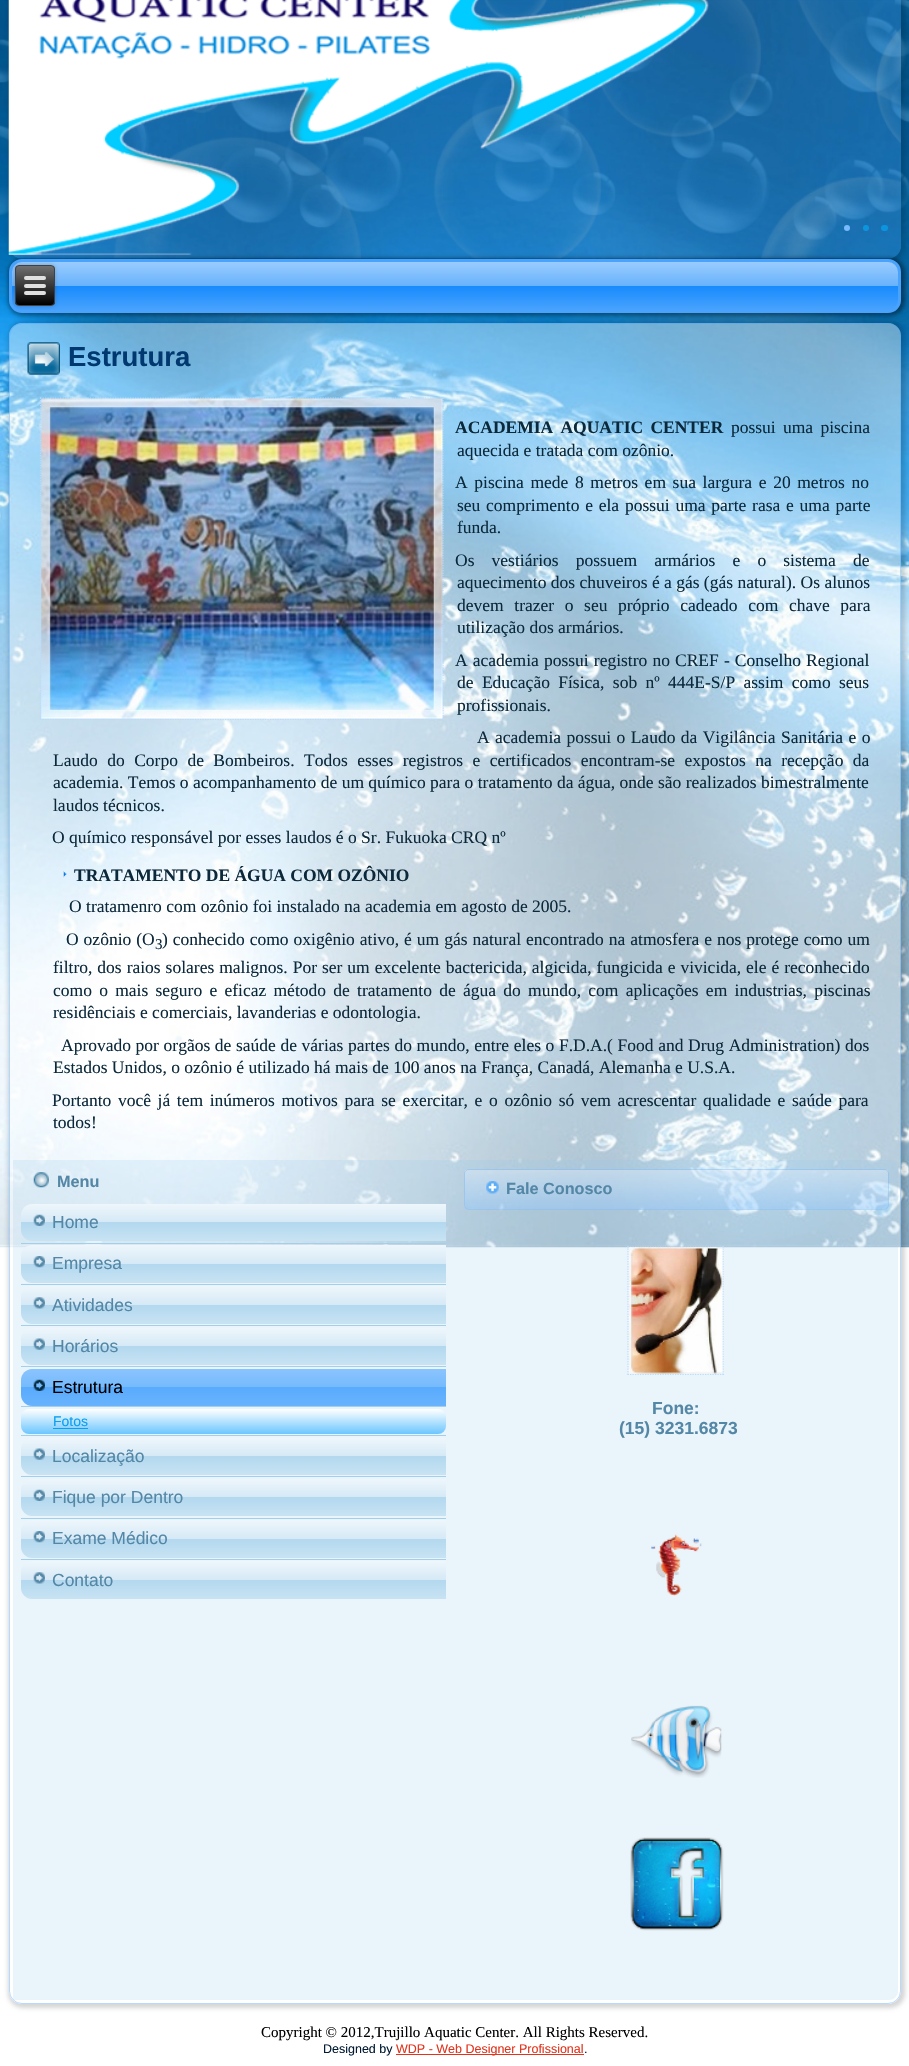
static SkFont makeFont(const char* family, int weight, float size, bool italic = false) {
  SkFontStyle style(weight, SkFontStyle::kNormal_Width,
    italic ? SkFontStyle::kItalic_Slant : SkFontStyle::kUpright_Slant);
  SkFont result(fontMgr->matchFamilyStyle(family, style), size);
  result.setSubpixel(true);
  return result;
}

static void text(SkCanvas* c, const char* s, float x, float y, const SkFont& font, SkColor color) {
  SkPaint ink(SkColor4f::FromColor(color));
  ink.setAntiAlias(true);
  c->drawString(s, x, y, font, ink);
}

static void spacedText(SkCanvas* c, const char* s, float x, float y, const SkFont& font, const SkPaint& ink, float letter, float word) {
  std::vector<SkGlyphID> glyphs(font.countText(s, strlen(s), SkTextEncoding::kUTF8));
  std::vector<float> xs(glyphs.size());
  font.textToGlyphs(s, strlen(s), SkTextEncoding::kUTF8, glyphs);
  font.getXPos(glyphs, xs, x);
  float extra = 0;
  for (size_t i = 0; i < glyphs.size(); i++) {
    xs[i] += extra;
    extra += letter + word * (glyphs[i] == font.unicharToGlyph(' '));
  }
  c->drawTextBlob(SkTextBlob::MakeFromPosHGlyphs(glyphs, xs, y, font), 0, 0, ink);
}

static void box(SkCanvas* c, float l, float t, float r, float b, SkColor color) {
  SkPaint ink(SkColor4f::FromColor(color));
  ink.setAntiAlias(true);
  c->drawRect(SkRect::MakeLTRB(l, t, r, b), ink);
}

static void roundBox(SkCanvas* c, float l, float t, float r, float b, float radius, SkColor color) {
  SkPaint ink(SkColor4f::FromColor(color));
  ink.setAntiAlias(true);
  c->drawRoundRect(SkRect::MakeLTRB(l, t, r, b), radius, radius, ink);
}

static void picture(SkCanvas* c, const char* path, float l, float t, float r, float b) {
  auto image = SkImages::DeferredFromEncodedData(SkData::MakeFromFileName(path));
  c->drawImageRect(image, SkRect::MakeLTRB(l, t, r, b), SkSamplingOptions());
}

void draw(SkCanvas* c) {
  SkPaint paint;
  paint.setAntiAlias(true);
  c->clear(0xffffffff);
  picture(c, "img_01.png", 0, 0, 909, 1248);
  c->save();
  c->clipPath(SkPathBuilder(SkPathFillType::kEvenOdd).moveTo(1, 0).lineTo(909, 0).lineTo(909, 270).lineTo(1, 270).close().moveTo(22, -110).lineTo(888, -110).cubicTo(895, -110, 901, -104, 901, -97).lineTo(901, 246).cubicTo(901, 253, 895, 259, 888, 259).lineTo(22, 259).cubicTo(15, 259, 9, 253, 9, 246).lineTo(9, -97).cubicTo(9, -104, 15, -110, 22, -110).close().detach(), true);
  paint.setColor(0x1f000000);
  paint.setMaskFilter(SkMaskFilter::MakeBlur(kNormal_SkBlurStyle, 2));
  c->drawRoundRect(SkRect::MakeLTRB(8, -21, 905, 263), 15, 15, paint);
  paint.setMaskFilter(nullptr);
  c->restore();
  picture(c, "img_03.png", 12, 0, 901, 259);
  picture(c, "img_02.png", 8, 0, 709, 255);
  paint.setColor(0xff77bafe);
  c->drawCircle(847, 228, 3, paint);
  paint.setColor(0xff0c95df);
  c->drawCircle(866, 228, 3, paint);
  roundBox(c, 881, 225, 888, 231, 3, 0xff0c95df);
  paint.setColor(0x66000000);
  paint.setMaskFilter(SkMaskFilter::MakeBlur(kNormal_SkBlurStyle, 2));
  c->drawRoundRect(SkRect::MakeLTRB(8, 258, 905, 316), 15, 15, paint);
  paint.setMaskFilter(nullptr);
  {
    const SkColor colors[] = {0xff9fcffe, 0xff68b2fd, 0xff178afd, 0xff4ea6fd};
    const float stops[] = {0, 0.5f, 0.5f, 1};
    const SkPoint ends[] = {{455, 259}, {455, 313}};
    paint.setShader(SkGradientShader::MakeLinear(ends, colors, stops, 4, SkTileMode::kClamp));
    paint.setAlpha(255);
  }
  c->drawRoundRect(SkRect::MakeLTRB(10.5f, 260.5f, 899.5f, 311.5f), 11.5f, 11.5f, paint);
  paint.setStyle(SkPaint::kStroke_Style);
  paint.setStrokeWidth(3);
  paint.setShader(nullptr);
  paint.setColor(0xff49a3fd);
  c->drawRoundRect(SkRect::MakeLTRB(10.5f, 260.5f, 899.5f, 311.5f), 11.5f, 11.5f, paint);
  paint.setStyle(SkPaint::kFill_Style);
  paint.setColor(0x33000000);
  paint.setMaskFilter(SkMaskFilter::MakeBlur(kNormal_SkBlurStyle, 2));
  c->drawRoundRect(SkRect::MakeLTRB(15, 265, 55, 306), 4, 4, paint);
  paint.setMaskFilter(nullptr);
  c->save();
  c->clipPath(SkPathBuilder().moveTo(19, 265).lineTo(51, 265).cubicTo(53, 265, 55, 267, 55, 269).lineTo(55, 302).cubicTo(55, 304, 53, 306, 51, 306).lineTo(19, 306).cubicTo(17, 306, 15, 304, 15, 302).lineTo(15, 269).cubicTo(15, 267, 17, 265, 19, 265).close().detach(), true);
  {
    const SkColor colors[] = {0xff707070, 0xff000000};
    const float stops[] = {0, 1};
    const SkPoint ends[] = {{35, 266}, {35, 305}};
    paint.setShader(SkGradientShader::MakeLinear(ends, colors, stops, 2, SkTileMode::kClamp));
    paint.setAlpha(255);
  }
  c->drawRect(SkRect::MakeLTRB(15, 266, 55, 305), paint);
  c->restore();
  paint.setStyle(SkPaint::kStroke_Style);
  paint.setStrokeWidth(1);
  paint.setShader(nullptr);
  paint.setColor(0xff404040);
  c->drawRoundRect(SkRect::MakeLTRB(15.5f, 265.5f, 54.5f, 305.5f), 3.5f, 3.5f, paint);
  roundBox(c, 24, 276, 46, 280, 2, 0xffe0e0e0);
  roundBox(c, 24, 284, 46, 288, 2, 0xffe0e0e0);
  roundBox(c, 24, 291, 46, 295, 2, 0xffe0e0e0);
  c->save();
  c->clipPath(SkPathBuilder(SkPathFillType::kEvenOdd).moveTo(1, 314).lineTo(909, 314).lineTo(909, 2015).lineTo(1, 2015).close().moveTo(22, 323).lineTo(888, 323).cubicTo(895, 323, 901, 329, 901, 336).lineTo(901, 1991).cubicTo(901, 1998, 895, 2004, 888, 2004).lineTo(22, 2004).cubicTo(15, 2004, 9, 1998, 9, 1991).lineTo(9, 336).cubicTo(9, 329, 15, 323, 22, 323).close().detach(), true);
  paint.setStyle(SkPaint::kFill_Style);
  paint.setColor(0x29000000);
  paint.setMaskFilter(SkMaskFilter::MakeBlur(kNormal_SkBlurStyle, 2));
  c->drawRoundRect(SkRect::MakeLTRB(8, 321, 905, 2008), 15, 15, paint);
  paint.setMaskFilter(nullptr);
  c->restore();
  roundBox(c, 9, 323, 901, 2004, 13, 0x66ffffff);
  paint.setStyle(SkPaint::kStroke_Style);
  paint.setColor(0x6649a3fd);
  c->drawRoundRect(SkRect::MakeLTRB(9.5f, 323.5f, 900.5f, 2003.5f), 12.5f, 12.5f, paint);
  picture(c, "img_04.png", 27, 342, 60, 375);
  SkFont face1 = makeFont("Liberation Sans", 700, 27.5f);
  text(c, "Estrutura", 68, 366, face1, 0xff01386f);
  paint.setStrokeWidth(1.2f);
  paint.setColor(0xffb8dbfe);
  paint.setPathEffect(SkDashPathEffect::Make({{1.25f, 1.25f}}, 0));
  c->drawPath(SkPathBuilder().moveTo(40, 398).lineTo(444, 398).detach(), paint);
  paint.setPathEffect(nullptr);
  paint.setPathEffect(SkDashPathEffect::Make({{1.25f, 1.25f}}, 0));
  c->drawPath(SkPathBuilder().moveTo(443, 397.5f).lineTo(443, 720).detach(), paint);
  paint.setPathEffect(nullptr);
  paint.setPathEffect(SkDashPathEffect::Make({{1.25f, 1.25f}}, 0));
  c->drawPath(SkPathBuilder().moveTo(40, 719.5f).lineTo(444, 719.5f).detach(), paint);
  paint.setPathEffect(nullptr);
  paint.setPathEffect(SkDashPathEffect::Make({{1.25f, 1.25f}}, 0));
  c->drawPath(SkPathBuilder().moveTo(40.5f, 397.5f).lineTo(40.5f, 720).detach(), paint);
  paint.setPathEffect(nullptr);
  picture(c, "img_05.png", 41, 398, 443, 719);
  SkFont face2 = makeFont("Liberation Serif", 700, 17.5f);
  paint.setStyle(SkPaint::kFill_Style);
  paint.setColor(0xff0c293b);
  spacedText(c, "ACADEMIA AQUATIC CENTER", 455, 433, face2, paint, 0, 2.9f);
  SkFont face3 = makeFont("Liberation Serif", 400, 17.5f);
  spacedText(c, "possui uma piscina", 731, 433, face3, paint, 0, 2.9f);
  text(c, "aquecida e tratada com ozônio.", 457, 456, face3, 0xff0c293b);
  spacedText(c, "A piscina mede 8 metros em sua largura e 20 metros no", 455, 488, face3, paint, 0, 2.25f);
  spacedText(c, "seu comprimento e ela possui uma parte rasa e uma parte", 457, 511, face3, paint, 0, 1.4f);
  text(c, "funda.", 457, 533, face3, 0xff0c293b);
  spacedText(c, "Os vestiários possuem armários e o sistema de", 455, 566, face3, paint, 0, 12.75f);
  text(c, "aquecimento dos chuveiros é a gás (gás natural). Os alunos", 457, 588, face3, 0xff0c293b);
  spacedText(c, "devem trazer o seu próprio cadeado com chave para", 457, 611, face3, paint, 0, 6.25f);
  text(c, "utilização dos armários.", 457, 633, face3, 0xff0c293b);
  spacedText(c, "A academia possui registro no CREF - Conselho Regional", 455, 666, face3, paint, 0, 0.75f);
  spacedText(c, "de Educação Física, sob nº 444E-S/P assim como seus", 457, 688, face3, paint, 0, 4);
  text(c, "profissionais.", 457, 711, face3, 0xff0c293b);
  spacedText(c, "A academia possui o Laudo da Vigilância Sanitária e o", 477, 743, face3, paint, 0, 1);
  spacedText(c, "Laudo do Corpo de Bombeiros. Todos esses registros e certificados encontram-se expostos na recepção da", 53, 766, face3, paint, 0, 5.1f);
  text(c, "academia. Temos o acompanhamento de um químico para o tratamento da água, onde são realizados bimestralmente", 53, 788, face3, 0xff0c293b);
  text(c, "laudos técnicos.", 53, 811, face3, 0xff0c293b);
  text(c, "O químico responsável por esses laudos é o Sr. Fukuoka CRQ nº", 52, 843, face3, 0xff0c293b);
  picture(c, "img_06.png", 63, 871, 67, 878);
  text(c, "TRATAMENTO DE ÁGUA COM OZÔNIO", 74, 881, face2, 0xff0c293b);
  text(c, "O tratamenro com ozônio foi instalado na academia em agosto de 2005.", 69, 912, face3, 0xff0c293b);
  spacedText(c, "O ozônio (O", 66, 945, face3, paint, 0, 0.6f);
  SkFont face4 = makeFont("Liberation Serif", 400, 15);
  text(c, "3", 155, 949, face4, 0xff0c293b);
  spacedText(c, ") conhecido como oxigênio ativo, é um gás natural encontrado na atmosfera e nos protege como um", 162, 945, face3, paint, 0, 0.6f);
  spacedText(c, "filtro, dos raios solares malignos. Por ser um excelente bactericida, algicida, fungicida e vivicida, ele é reconhecido", 53, 973, face3, paint, 0, 0.6f);
  spacedText(c, "como o mais seguro e eficaz método de tratamento de água do mundo, com aplicações em industrias, piscinas", 53, 996, face3, paint, 0, 2.9f);
  text(c, "residênciais e comerciais, lavanderias e odontologia.", 53, 1018, face3, 0xff0c293b);
  spacedText(c, "Aprovado por orgãos de saúde de várias partes do mundo, entre eles o F.D.A.( Food and Drug Administration) dos", 61, 1051, face3, paint, 0, 0.25f);
  text(c, "Estados Unidos, o ozônio é utilizado há mais de 100 anos na França, Canadá, Alemanha e U.S.A.", 53, 1073, face3, 0xff0c293b);
  spacedText(c, "Portanto você já tem inúmeros motivos para se exercitar, e o ozônio só vem acrescentar qualidade e saúde para", 52, 1106, face3, paint, 0, 2.25f);
  text(c, "todos!", 53, 1128, face3, 0xff0c293b);
  paint.setColor(0x3396c9e9);
  c->drawPath(SkPathBuilder().moveTo(13, 1160).lineTo(889, 1160).cubicTo(894, 1160, 898, 1164, 898, 1169).lineTo(898, 1991).cubicTo(898, 1996, 894, 2000, 889, 2000).lineTo(13, 2000).close().detach(), paint);
  picture(c, "img_07.png", 33, 1172, 49, 1188);
  SkFont face5 = makeFont("Liberation Sans", 700, 16.25f);
  text(c, "Menu", 57, 1187, face5, 0xff5487a6);
  {
    const SkColor colors[] = {0xffeef6fb, 0xffd5e9f6, 0xffb3d8ef, 0xffc8e3f3};
    const float stops[] = {0, 0.5f, 0.5f, 1};
    const SkPoint ends[] = {{234, 1204}, {234, 1241}};
    paint.setShader(SkGradientShader::MakeLinear(ends, colors, stops, 4, SkTileMode::kClamp));
    paint.setAlpha(255);
  }
  c->drawPath(SkPathBuilder().moveTo(32, 1204).lineTo(446, 1204).lineTo(446, 1241).lineTo(32, 1241).cubicTo(26, 1241, 21, 1236, 21, 1230).lineTo(21, 1215).cubicTo(21, 1209, 26, 1204, 32, 1204).close().detach(), paint);
  picture(c, "img_08.png", 33, 1214, 45, 1226);
  SkFont face6 = makeFont("Liberation Sans", 400, 17.5f);
  text(c, "Home", 52, 1228, face6, 0xff5487a6);
  box(c, 21, 1243, 446, 1244, 0xffa2cfeb);
  {
    const SkColor colors[] = {0xffeef6fb, 0xffd5e9f6, 0xffb3d8ef, 0xffc8e3f3};
    const float stops[] = {0, 0.5f, 0.5f, 1};
    const SkPoint ends[] = {{234, 1245}, {234, 1283}};
    paint.setShader(SkGradientShader::MakeLinear(ends, colors, stops, 4, SkTileMode::kClamp));
    paint.setAlpha(255);
  }
  c->drawPath(SkPathBuilder().moveTo(32, 1245).lineTo(446, 1245).lineTo(446, 1283).lineTo(32, 1283).cubicTo(26, 1283, 21, 1278, 21, 1272).lineTo(21, 1256).cubicTo(21, 1250, 26, 1245, 32, 1245).close().detach(), paint);
  picture(c, "img_09.png", 33, 1256, 45, 1268);
  text(c, "Empresa", 52, 1269, face6, 0xff5487a6);
  box(c, 21, 1284, 446, 1285, 0xffa2cfeb);
  {
    const SkColor colors[] = {0xffeef6fb, 0xffd5e9f6, 0xffb3d8ef, 0xffc8e3f3};
    const float stops[] = {0, 0.5f, 0.5f, 1};
    const SkPoint ends[] = {{234, 1286}, {234, 1324}};
    paint.setShader(SkGradientShader::MakeLinear(ends, colors, stops, 4, SkTileMode::kClamp));
    paint.setAlpha(255);
  }
  c->drawPath(SkPathBuilder().moveTo(32, 1286).lineTo(446, 1286).lineTo(446, 1324).lineTo(32, 1324).cubicTo(26, 1324, 21, 1319, 21, 1313).lineTo(21, 1297).cubicTo(21, 1291, 26, 1286, 32, 1286).close().detach(), paint);
  picture(c, "img_10.png", 33, 1297, 45, 1309);
  text(c, "Atividades", 52, 1311, face6, 0xff5487a6);
  box(c, 21, 1325, 446, 1326, 0xffa2cfeb);
  {
    const SkColor colors[] = {0xffeef6fb, 0xffd5e9f6, 0xffb3d8ef, 0xffc8e3f3};
    const float stops[] = {0, 0.5f, 0.5f, 1};
    const SkPoint ends[] = {{234, 1328}, {234, 1365}};
    paint.setShader(SkGradientShader::MakeLinear(ends, colors, stops, 4, SkTileMode::kClamp));
    paint.setAlpha(255);
  }
  c->drawPath(SkPathBuilder().moveTo(32, 1328).lineTo(446, 1328).lineTo(446, 1365).lineTo(32, 1365).cubicTo(26, 1365, 21, 1360, 21, 1354).lineTo(21, 1339).cubicTo(21, 1333, 26, 1328, 32, 1328).close().detach(), paint);
  picture(c, "img_11.png", 33, 1338, 45, 1350);
  text(c, "Horários", 52, 1352, face6, 0xff5487a6);
  box(c, 21, 1366, 446, 1367, 0xffa2cfeb);
  {
    const SkColor colors[] = {0xff8ac4fd, 0xff75bafd, 0xff59abfd, 0xff69b3fd};
    const float stops[] = {0, 0.5f, 0.5f, 1};
    const SkPoint ends[] = {{234, 1369}, {234, 1406}};
    paint.setShader(SkGradientShader::MakeLinear(ends, colors, stops, 4, SkTileMode::kClamp));
    paint.setAlpha(255);
  }
  c->drawPath(SkPathBuilder().moveTo(32, 1369).lineTo(446, 1369).lineTo(446, 1406).lineTo(32, 1406).cubicTo(26, 1406, 21, 1401, 21, 1395).lineTo(21, 1380).cubicTo(21, 1374, 26, 1369, 32, 1369).close().detach(), paint);
  picture(c, "img_12.png", 33, 1379, 45, 1391);
  text(c, "Estrutura", 52, 1393, face6, 0xff000000);
  box(c, 21, 1406, 446, 1407, 0xffa2cfeb);
  {
    const SkColor colors[] = {0xffffffff, 0xff6bc6ff};
    const float stops[] = {0, 1};
    const SkPoint ends[] = {{234, 1409}, {234, 1434}};
    paint.setShader(SkGradientShader::MakeLinear(ends, colors, stops, 2, SkTileMode::kClamp));
    paint.setAlpha(255);
  }
  c->drawRoundRect(SkRect::MakeLTRB(21, 1409, 446, 1434), 8, 8, paint);
  SkFont face7 = makeFont("Liberation Sans", 400, 14);
  text(c, "Fotos", 53, 1426, face7, 0xff0c9fed);
  box(c, 53, 1428, 88, 1429, 0xff0c9fed);
  box(c, 21, 1435, 446, 1436, 0xffa2cfeb);
  {
    const SkColor colors[] = {0xffeef6fb, 0xffd5e9f6, 0xffb3d8ef, 0xffc8e3f3};
    const float stops[] = {0, 0.5f, 0.5f, 1};
    const SkPoint ends[] = {{234, 1438}, {234, 1475}};
    paint.setShader(SkGradientShader::MakeLinear(ends, colors, stops, 4, SkTileMode::kClamp));
    paint.setAlpha(255);
  }
  c->drawPath(SkPathBuilder().moveTo(32, 1438).lineTo(446, 1438).lineTo(446, 1475).lineTo(32, 1475).cubicTo(26, 1475, 21, 1470, 21, 1464).lineTo(21, 1449).cubicTo(21, 1443, 26, 1438, 32, 1438).close().detach(), paint);
  picture(c, "img_11.png", 33, 1448, 45, 1460);
  text(c, "Localização", 52, 1462, face6, 0xff5487a6);
  box(c, 21, 1476, 446, 1477, 0xffa2cfeb);
  {
    const SkColor colors[] = {0xffeef6fb, 0xffd5e9f6, 0xffb3d8ef, 0xffc8e3f3};
    const float stops[] = {0, 0.5f, 0.5f, 1};
    const SkPoint ends[] = {{234, 1479}, {234, 1516}};
    paint.setShader(SkGradientShader::MakeLinear(ends, colors, stops, 4, SkTileMode::kClamp));
    paint.setAlpha(255);
  }
  c->drawPath(SkPathBuilder().moveTo(32, 1479).lineTo(446, 1479).lineTo(446, 1516).lineTo(32, 1516).cubicTo(26, 1516, 21, 1511, 21, 1505).lineTo(21, 1490).cubicTo(21, 1484, 26, 1479, 32, 1479).close().detach(), paint);
  picture(c, "img_08.png", 33, 1489, 45, 1501);
  text(c, "Fique por Dentro", 52, 1503, face6, 0xff5487a6);
  box(c, 21, 1518, 446, 1519, 0xffa2cfeb);
  {
    const SkColor colors[] = {0xffeef6fb, 0xffd5e9f6, 0xffb3d8ef, 0xffc8e3f3};
    const float stops[] = {0, 0.5f, 0.5f, 1};
    const SkPoint ends[] = {{234, 1520}, {234, 1558}};
    paint.setShader(SkGradientShader::MakeLinear(ends, colors, stops, 4, SkTileMode::kClamp));
    paint.setAlpha(255);
  }
  c->drawPath(SkPathBuilder().moveTo(32, 1520).lineTo(446, 1520).lineTo(446, 1558).lineTo(32, 1558).cubicTo(26, 1558, 21, 1553, 21, 1547).lineTo(21, 1531).cubicTo(21, 1525, 26, 1520, 32, 1520).close().detach(), paint);
  picture(c, "img_09.png", 33, 1531, 45, 1543);
  text(c, "Exame Médico", 52, 1544, face6, 0xff5487a6);
  box(c, 21, 1559, 446, 1560, 0xffa2cfeb);
  {
    const SkColor colors[] = {0xffeef6fb, 0xffd5e9f6, 0xffb3d8ef, 0xffc8e3f3};
    const float stops[] = {0, 0.5f, 0.5f, 1};
    const SkPoint ends[] = {{234, 1561}, {234, 1599}};
    paint.setShader(SkGradientShader::MakeLinear(ends, colors, stops, 4, SkTileMode::kClamp));
    paint.setAlpha(255);
  }
  c->drawPath(SkPathBuilder().moveTo(32, 1561).lineTo(446, 1561).lineTo(446, 1599).lineTo(32, 1599).cubicTo(26, 1599, 21, 1594, 21, 1588).lineTo(21, 1572).cubicTo(21, 1566, 26, 1561, 32, 1561).close().detach(), paint);
  picture(c, "img_10.png", 33, 1572, 45, 1584);
  text(c, "Contato", 52, 1586, face6, 0xff5487a6);
  c->save();
  c->clipPath(SkPathBuilder().moveTo(469, 1169).lineTo(884, 1169).cubicTo(887, 1169, 889, 1171, 889, 1174).lineTo(889, 1205).cubicTo(889, 1208, 887, 1210, 884, 1210).lineTo(469, 1210).cubicTo(466, 1210, 464, 1208, 464, 1205).lineTo(464, 1174).cubicTo(464, 1171, 466, 1169, 469, 1169).close().detach(), true);
  {
    const SkColor colors[] = {0x66e6f2ff, 0x6690c7fe};
    const float stops[] = {0, 1};
    const SkPoint ends[] = {{676, 1170}, {676, 1209}};
    paint.setShader(SkGradientShader::MakeLinear(ends, colors, stops, 2, SkTileMode::kClamp));
    paint.setAlpha(255);
  }
  c->drawRect(SkRect::MakeLTRB(465, 1170, 888, 1209), paint);
  c->restore();
  paint.setStyle(SkPaint::kStroke_Style);
  paint.setStrokeWidth(1);
  paint.setShader(nullptr);
  paint.setColor(0x6677bafe);
  c->drawRoundRect(SkRect::MakeLTRB(464.5f, 1169.5f, 888.5f, 1209.5f), 4.5f, 4.5f, paint);
  picture(c, "img_13.png", 486, 1181, 499, 1194);
  text(c, "Fale Conosco", 506, 1194, face5, 0xff5487a6);
  paint.setStrokeWidth(1.2f);
  paint.setColor(0xffb8dbfe);
  paint.setPathEffect(SkDashPathEffect::Make({{1.25f, 1.25f}}, 0));
  c->drawPath(SkPathBuilder().moveTo(627.5f, 1247).lineTo(724, 1247).detach(), paint);
  paint.setPathEffect(nullptr);
  paint.setPathEffect(SkDashPathEffect::Make({{1.25f, 1.25f}}, 0));
  c->drawPath(SkPathBuilder().moveTo(723, 1246).lineTo(723, 1375).detach(), paint);
  paint.setPathEffect(nullptr);
  paint.setPathEffect(SkDashPathEffect::Make({{1.25f, 1.25f}}, 0));
  c->drawPath(SkPathBuilder().moveTo(627.5f, 1374.5f).lineTo(724, 1374.5f).detach(), paint);
  paint.setPathEffect(nullptr);
  paint.setPathEffect(SkDashPathEffect::Make({{1.25f, 1.25f}}, 0));
  c->drawPath(SkPathBuilder().moveTo(628, 1246).lineTo(628, 1375).detach(), paint);
  paint.setPathEffect(nullptr);
  picture(c, "img_14.png", 628, 1247, 723, 1374);
  SkFont face8 = makeFont("Liberation Sans", 700, 17.5f);
  text(c, "Fone:", 652, 1414, face8, 0xff5487a6);
  text(c, "(15) 3231.6873", 619, 1434, face8, 0xff5487a6);
  picture(c, "img_15.png", 651, 1534, 702, 1596);
  picture(c, "img_16.png", 631, 1705, 722, 1778);
  picture(c, "img_17.png", 630, 1837, 724, 1931);
  text(c, "Copyright © 2012,Trujillo Aquatic Center. All Rights Reserved.", 261, 2037, face4, 0xff000000);
  SkFont face9 = makeFont("Liberation Sans", 400, 12.5f);
  text(c, "Designed by", 323, 2053, face9, 0xff011a32);
  box(c, 396, 2054, 584, 2055, 0xffe2341d);
  text(c, "WDP - Web Designer Profissional", 396, 2053, face9, 0xffe2341d);
  text(c, ".", 584, 2053, face9, 0xff011a32);
}
